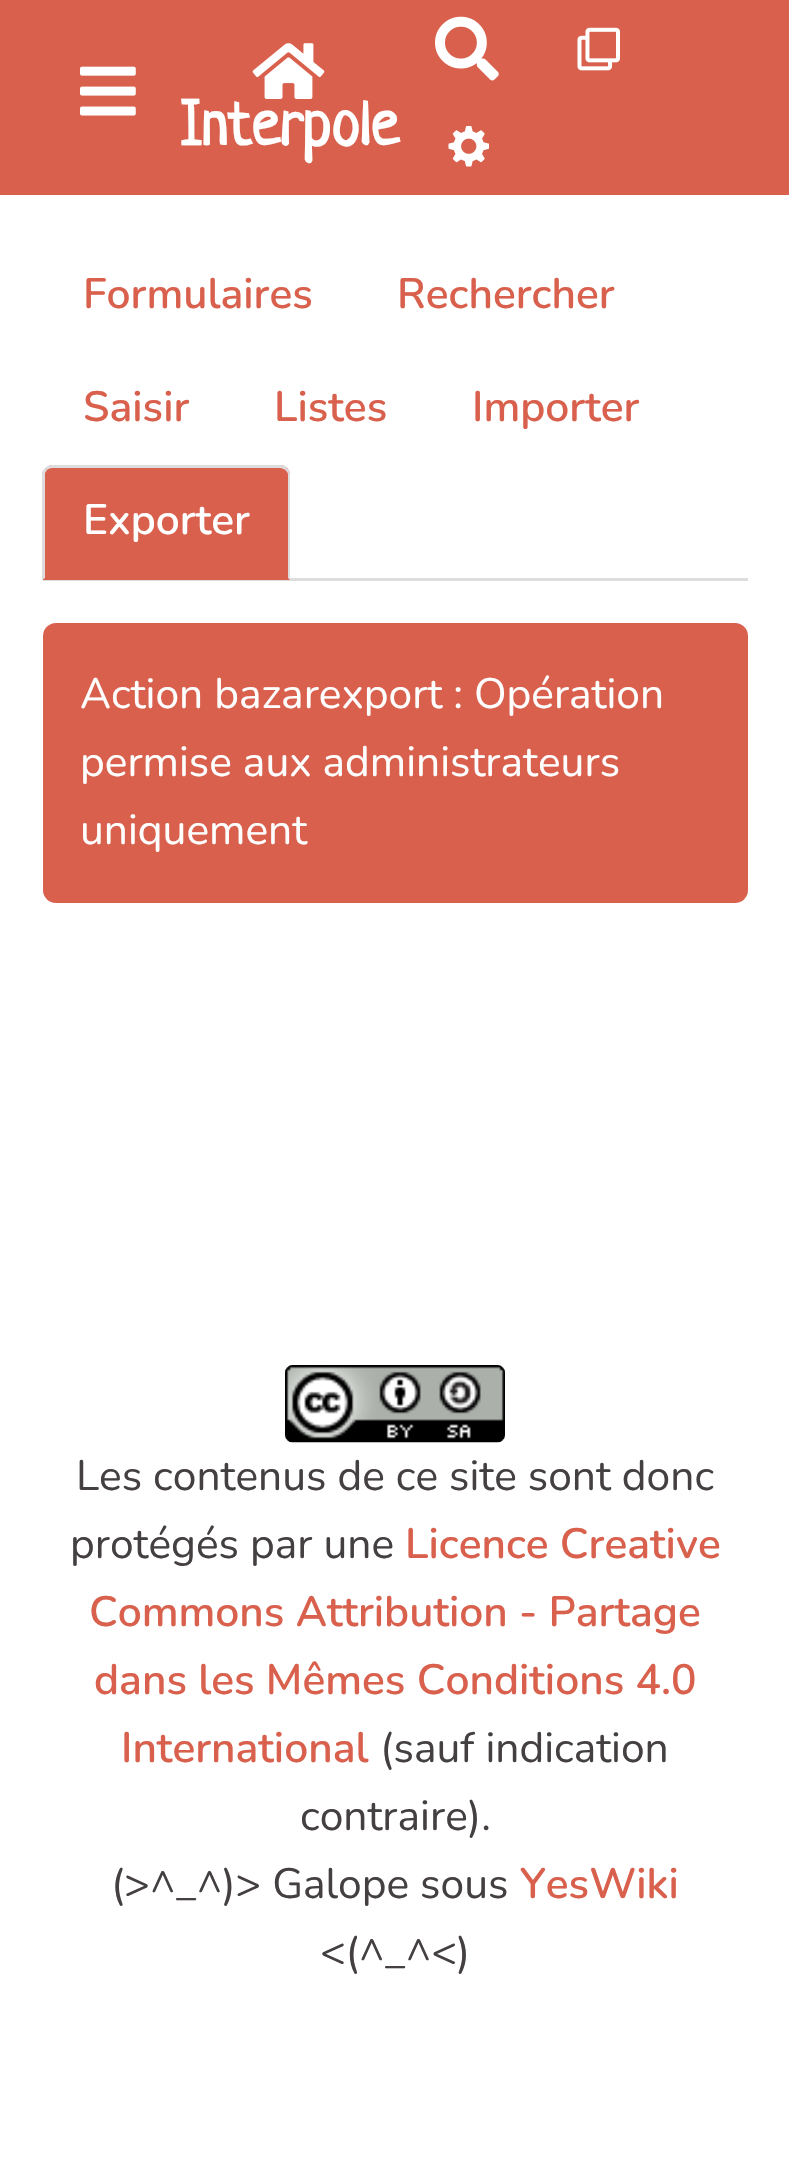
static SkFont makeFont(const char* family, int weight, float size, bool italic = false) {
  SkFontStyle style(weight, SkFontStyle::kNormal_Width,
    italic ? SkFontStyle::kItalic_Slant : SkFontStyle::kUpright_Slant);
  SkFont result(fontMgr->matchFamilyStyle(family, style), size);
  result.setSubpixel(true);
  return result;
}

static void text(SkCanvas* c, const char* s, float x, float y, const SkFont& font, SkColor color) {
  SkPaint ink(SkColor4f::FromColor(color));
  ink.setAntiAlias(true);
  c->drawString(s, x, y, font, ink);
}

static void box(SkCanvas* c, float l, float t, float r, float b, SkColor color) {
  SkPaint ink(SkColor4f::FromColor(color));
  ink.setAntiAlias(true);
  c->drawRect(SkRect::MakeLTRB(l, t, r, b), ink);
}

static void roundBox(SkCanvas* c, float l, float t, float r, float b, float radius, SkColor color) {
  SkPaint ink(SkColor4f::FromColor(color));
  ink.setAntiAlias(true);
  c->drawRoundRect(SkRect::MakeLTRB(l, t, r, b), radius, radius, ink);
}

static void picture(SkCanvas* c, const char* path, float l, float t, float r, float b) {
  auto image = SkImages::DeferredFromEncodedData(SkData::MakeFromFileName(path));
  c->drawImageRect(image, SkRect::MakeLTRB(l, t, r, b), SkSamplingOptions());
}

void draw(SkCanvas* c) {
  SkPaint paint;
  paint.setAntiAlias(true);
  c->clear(0xffffffff);
  box(c, 0, 0, 789, 195, 0xffd8604c);
  picture(c, "img_01.png", 80, 66, 136, 116);
  picture(c, "img_02.png", 435, 16, 499, 81);
  picture(c, "img_03.png", 577, 27, 620, 71);
  picture(c, "img_04.png", 448, 125, 490, 167);
  picture(c, "img_05.png", 252, 43, 325, 99);
  SkFont face1 = makeFont("Neucha", 700, 64);
  text(c, "Interpole", 180, 145, face1, 0xffffffff);
  box(c, 43, 578, 748, 581, 0xffdddddd);
  SkFont face2 = makeFont("Nunito", 600, 42.5f);
  text(c, "Formulaires", 83, 308, face2, 0xffd8604c);
  text(c, "Rechercher", 397, 308, face2, 0xffd8604c);
  text(c, "Saisir", 83, 421, face2, 0xffd8604c);
  text(c, "Listes", 274, 421, face2, 0xffd8604c);
  text(c, "Importer", 472, 421, face2, 0xffd8604c);
  paint.setColor(0xffd8604c);
  c->drawPath(SkPathBuilder().moveTo(53, 465).lineTo(280, 465).cubicTo(285.5f, 465, 290, 469.5f, 290, 475).lineTo(290, 580).lineTo(43, 580).lineTo(43, 475).cubicTo(43, 469.5f, 47.5f, 465, 53, 465).close().detach(), paint);
  paint.setColor(0xffdddddd);
  c->drawPath(SkPathBuilder().moveTo(52, 465).cubicTo(50, 465, 47, 466, 45, 468).lineTo(47, 470).cubicTo(48, 469, 50, 468, 52, 468).lineTo(280, 468).cubicTo(282, 468, 284, 469, 285, 470).lineTo(287, 468).cubicTo(286, 466, 283, 465, 280, 465).close().detach(), paint);
  c->drawPath(SkPathBuilder().moveTo(290, 580).lineTo(290, 475).cubicTo(290, 472, 289, 470, 287, 468).lineTo(285, 470).cubicTo(287, 471, 288, 473, 288, 475).lineTo(288, 578).close().detach(), paint);
  c->drawPath(SkPathBuilder().moveTo(42, 580).lineTo(42, 472).lineTo(45, 468).lineTo(47, 470).lineTo(45, 473).lineTo(45, 578).close().detach(), paint);
  text(c, "Exporter", 83, 534, face2, 0xffffffff);
  roundBox(c, 43, 623, 748, 903, 13, 0xffd8604c);
  SkFont face3 = makeFont("Nunito", 200, 42.5f);
  text(c, "Action bazarexport : Opération", 80, 708, face3, 0xffffffff);
  text(c, "permise aux administrateurs", 80, 776, face3, 0xffffffff);
  text(c, "uniquement", 80, 844, face3, 0xffffffff);
  picture(c, "img_06.png", 285, 1365, 505, 1443);
  text(c, "Les contenus de ce site sont donc", 76, 1490, face3, 0xff444041);
  text(c, "protégés par une", 70, 1558, face3, 0xff444041);
  text(c, "Licence Creative", 405, 1558, face2, 0xffd8604c);
  text(c, "Commons Attribution - Partage", 89, 1626, face2, 0xffd8604c);
  text(c, "dans les Mêmes Conditions 4.0", 94, 1694, face2, 0xffd8604c);
  text(c, "International", 121, 1762, face2, 0xffd8604c);
  text(c, "(sauf indication", 380, 1762, face3, 0xff444041);
  text(c, "contraire).", 300, 1830, face3, 0xff444041);
  text(c, "(>^_^)> Galope sous", 111, 1898, face3, 0xff444041);
  text(c, "YesWiki", 520, 1898, face2, 0xffd8604c);
  text(c, "<(^_^<)", 320, 1966, face3, 0xff444041);
}
